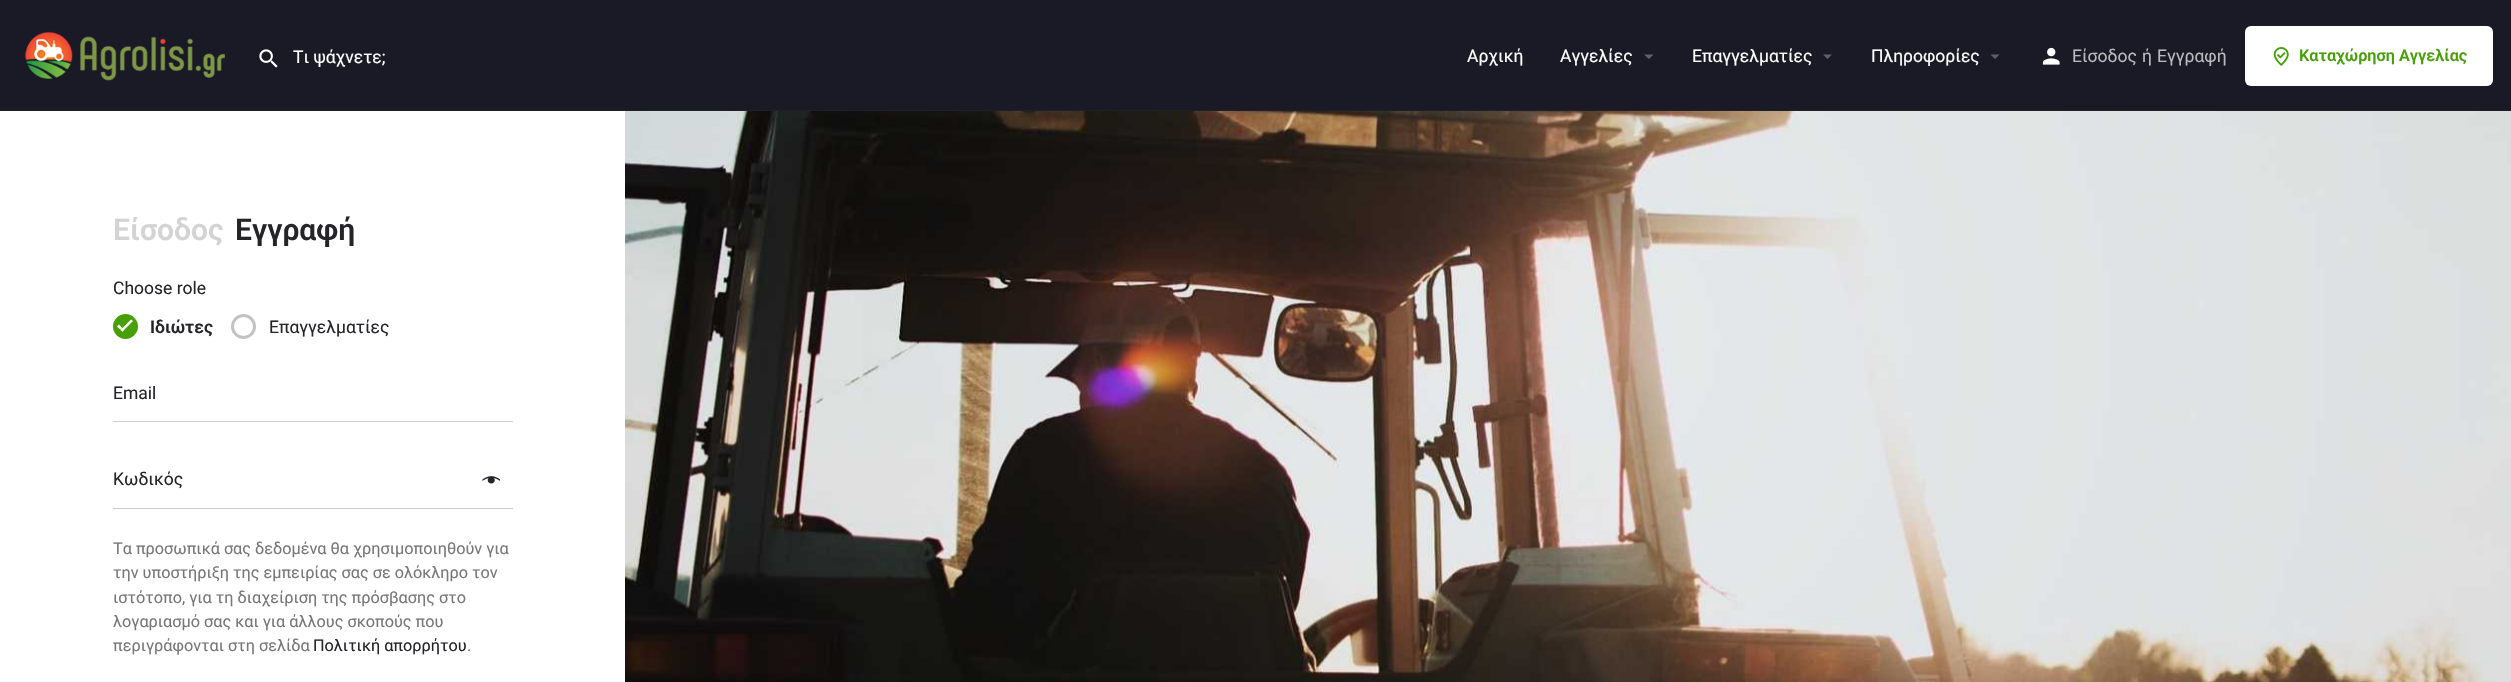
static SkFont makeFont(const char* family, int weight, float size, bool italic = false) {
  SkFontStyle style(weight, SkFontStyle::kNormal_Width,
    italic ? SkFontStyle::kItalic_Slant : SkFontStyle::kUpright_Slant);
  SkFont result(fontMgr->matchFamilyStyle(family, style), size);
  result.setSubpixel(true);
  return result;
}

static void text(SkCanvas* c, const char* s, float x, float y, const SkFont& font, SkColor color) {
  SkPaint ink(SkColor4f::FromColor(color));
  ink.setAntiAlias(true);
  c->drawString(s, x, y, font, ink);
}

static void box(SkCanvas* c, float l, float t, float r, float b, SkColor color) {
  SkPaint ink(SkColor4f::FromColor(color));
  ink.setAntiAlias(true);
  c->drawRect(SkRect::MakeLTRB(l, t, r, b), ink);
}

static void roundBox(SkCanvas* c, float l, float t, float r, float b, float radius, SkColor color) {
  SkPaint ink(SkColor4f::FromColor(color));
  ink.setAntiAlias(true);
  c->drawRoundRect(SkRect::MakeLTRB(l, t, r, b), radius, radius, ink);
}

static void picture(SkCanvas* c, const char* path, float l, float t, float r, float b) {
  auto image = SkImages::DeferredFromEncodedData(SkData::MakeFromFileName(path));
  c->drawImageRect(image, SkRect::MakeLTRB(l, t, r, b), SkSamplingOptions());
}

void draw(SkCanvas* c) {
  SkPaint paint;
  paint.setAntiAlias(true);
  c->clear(0xffffffff);
  box(c, 0, 0, 2511, 110, 0xff1a1a26);
  box(c, 0, 110, 2511, 111, 0xff202125);
  picture(c, "img_01.png", 25, 31, 225, 81);
  picture(c, "img_02.png", 259, 49, 278, 68);
  SkFont face1 = makeFont("Roboto", 400, 17.5f);
  text(c, "Τι ψάχνετε;", 293, 63, face1, 0xffffffff);
  text(c, "Αρχική", 1467, 62, face1, 0xffffffff);
  text(c, "Aγγελίες", 1560, 62, face1, 0xffffffff);
  paint.setColor(0xff5f5f67);
  c->drawPath(SkPathBuilder().moveTo(1644, 54.5f).lineTo(1653.5f, 54.5f).lineTo(1649, 59).close().detach(), paint);
  text(c, "Επαγγελματίες", 1692, 62, face1, 0xffffffff);
  c->drawPath(SkPathBuilder().moveTo(1823, 54.5f).lineTo(1832, 54.5f).lineTo(1827.5f, 59).close().detach(), paint);
  text(c, "Πληροφορίες", 1871, 62, face1, 0xffffffff);
  c->drawPath(SkPathBuilder().moveTo(1990.5f, 54.5f).lineTo(1999.5f, 54.5f).lineTo(1995, 59).close().detach(), paint);
  picture(c, "img_03.png", 2042, 47, 2060, 65);
  text(c, "Είσοδος", 2072, 62, face1, 0xffbababe);
  text(c, "ή", 2142, 62, face1, 0xffbababe);
  text(c, "Εγγραφή", 2157, 62, face1, 0xffbababe);
  roundBox(c, 2245, 26, 2493, 86, 6, 0xffffffff);
  picture(c, "img_04.png", 2273, 47, 2289, 66);
  SkFont face2 = makeFont("Roboto", 600, 16.25f);
  text(c, "Καταχώρηση Αγγελίας", 2299, 61, face2, 0xff47a008);
  SkFont face3 = makeFont("Roboto", 600, 30);
  text(c, "Είσοδος", 113, 240, face3, 0xffd3d3d4);
  text(c, "Εγγραφή", 235, 240, face3, 0xff242429);
  text(c, "Choose role", 113, 294, face1, 0xff242429);
  paint.setColor(0xff47a008);
  c->drawCircle(125.5f, 326.5f, 12.5f, paint);
  paint.setColor(0xffffffff);
  c->drawPath(SkPathBuilder().moveTo(120.5f, 330).lineTo(131, 319.5f).lineTo(133, 321).lineTo(122.5f, 331.5f).close().detach(), paint);
  c->drawPath(SkPathBuilder().moveTo(117, 326.5f).lineTo(119, 324.5f).lineTo(124, 330).lineTo(122.5f, 331.5f).close().detach(), paint);
  SkFont face4 = makeFont("Roboto", 600, 17.5f);
  text(c, "Ιδιώτες", 150, 333, face4, 0xff242429);
  paint.setStyle(SkPaint::kStroke_Style);
  paint.setStrokeWidth(3);
  paint.setColor(0xffc2c2c2);
  c->drawCircle(243.5f, 326.5f, 11, paint);
  text(c, "Επαγγελματίες", 269, 333, face1, 0xff242429);
  text(c, "Email", 113, 399, face1, 0xff242429);
  box(c, 113, 421, 513, 422, 0xffcccccc);
  text(c, "Κωδικός", 113, 485, face1, 0xff242429);
  box(c, 113, 508, 513, 509, 0xffcccccc);
  picture(c, "img_05.png", 482, 476, 500, 484);
  SkFont face5 = makeFont("Roboto", 400, 16.25f);
  text(c, "Τα προσωπικά σας δεδομένα θα χρησιμοποιηθούν για", 113, 554, face5, 0xff777777);
  text(c, "την υποστήριξη της εμπειρίας σας σε ολόκληρο τον", 113, 578, face5, 0xff777777);
  text(c, "ιστότοπο, για τη διαχείριση της πρόσβασης στο", 113, 603, face5, 0xff777777);
  text(c, "λογαριασμό σας και για άλλους σκοπούς που", 113, 627, face5, 0xff777777);
  text(c, "περιγράφονται στη σελίδα", 113, 651, face5, 0xff777777);
  text(c, "Πολιτική απορρήτου", 313, 651, face5, 0xff242429);
  text(c, ".", 467, 651, face5, 0xff777777);
  picture(c, "img_06.png", 625, 111, 2511, 682);
}
